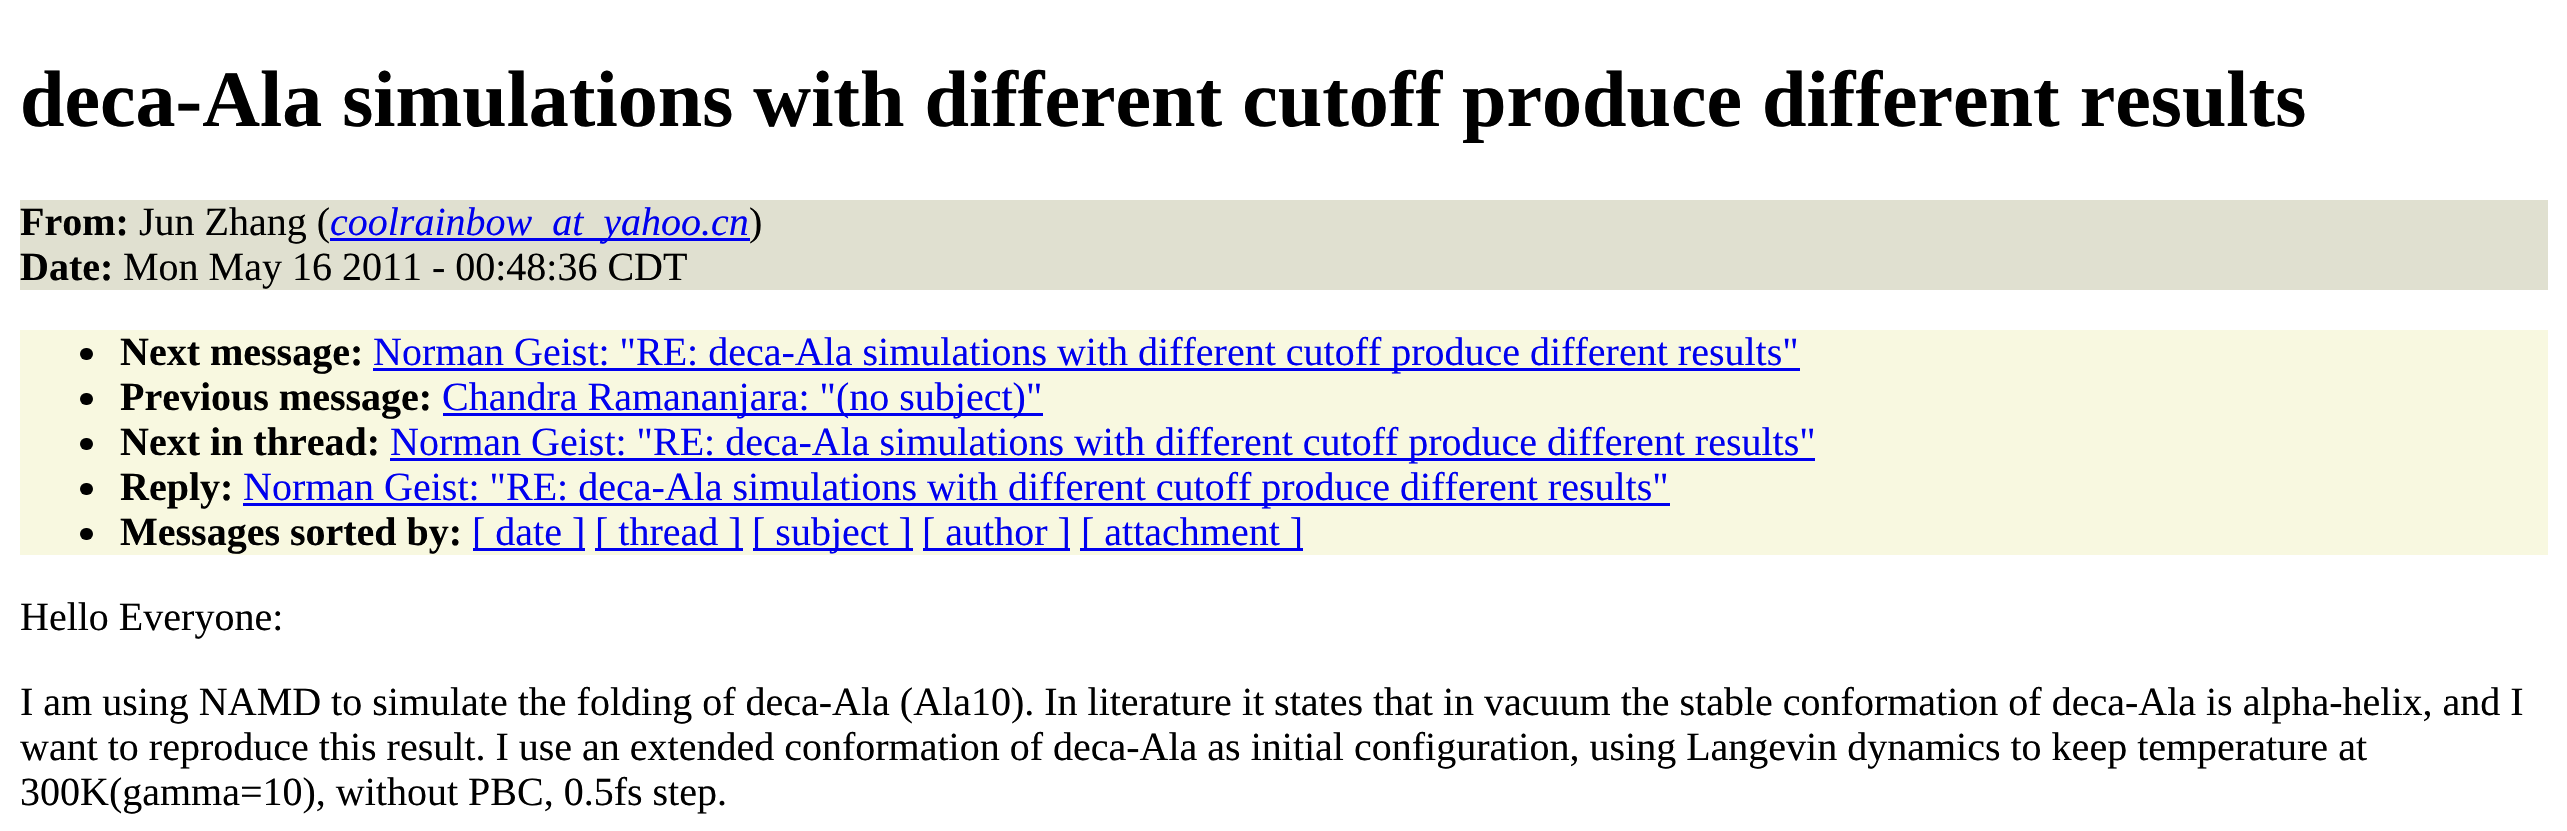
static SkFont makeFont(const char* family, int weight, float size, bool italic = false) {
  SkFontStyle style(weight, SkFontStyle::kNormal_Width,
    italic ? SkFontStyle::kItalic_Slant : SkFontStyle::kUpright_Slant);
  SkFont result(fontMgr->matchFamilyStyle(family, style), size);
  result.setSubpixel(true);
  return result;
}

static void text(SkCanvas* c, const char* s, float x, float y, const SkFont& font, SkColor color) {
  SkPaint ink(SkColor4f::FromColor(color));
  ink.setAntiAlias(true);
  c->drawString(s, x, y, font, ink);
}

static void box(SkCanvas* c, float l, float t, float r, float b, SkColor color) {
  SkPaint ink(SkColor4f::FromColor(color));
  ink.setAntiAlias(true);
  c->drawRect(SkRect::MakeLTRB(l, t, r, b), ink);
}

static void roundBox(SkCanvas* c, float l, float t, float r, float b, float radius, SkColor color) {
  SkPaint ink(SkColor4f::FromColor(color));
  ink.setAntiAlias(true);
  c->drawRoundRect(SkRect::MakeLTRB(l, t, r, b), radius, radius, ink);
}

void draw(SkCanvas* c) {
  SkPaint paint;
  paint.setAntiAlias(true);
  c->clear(0xffffffff);
  SkFont face1 = makeFont("Liberation Serif", 700, 80);
  text(c, "deca-Ala simulations with different cutoff produce different results", 20, 126, face1, 0xff000000);
  box(c, 20, 200, 2548, 290, 0xffe0e0d0);
  SkFont face2 = makeFont("Liberation Serif", 700, 40);
  text(c, "From:", 20, 235, face2, 0xff000000);
  SkFont face3 = makeFont("Liberation Serif", 400, 40);
  text(c, "Jun Zhang (", 139, 235, face3, 0xff000000);
  box(c, 330, 238, 750, 241, 0xff0000ee);
  SkFont face4 = makeFont("Liberation Serif", 400, 40, true);
  text(c, "coolrainbow_at_yahoo.cn", 330, 235, face4, 0xff0000ee);
  text(c, ")", 749, 235, face3, 0xff000000);
  text(c, "Date:", 20, 280, face2, 0xff000000);
  text(c, "Mon May 16 2011 - 00:48:36 CDT", 123, 280, face3, 0xff000000);
  box(c, 20, 330, 2548, 555, 0xfff8f8e0);
  roundBox(c, 80, 348, 93, 360, 6, 0xff000000);
  text(c, "Next message:", 120, 365, face2, 0xff000000);
  box(c, 373, 368, 1800, 371, 0xff0000ee);
  text(c, "Norman Geist: \"RE: deca-Ala simulations with different cutoff produce different results\"", 373, 365, face3, 0xff0000ee);
  roundBox(c, 80, 393, 93, 405, 6, 0xff000000);
  text(c, "Previous message:", 120, 410, face2, 0xff000000);
  box(c, 443, 413, 1043, 416, 0xff0000ee);
  text(c, "Chandra Ramananjara: \"(no subject)\"", 442, 410, face3, 0xff0000ee);
  roundBox(c, 80, 438, 93, 450, 6, 0xff000000);
  text(c, "Next in thread:", 120, 455, face2, 0xff000000);
  box(c, 390, 458, 1815, 461, 0xff0000ee);
  text(c, "Norman Geist: \"RE: deca-Ala simulations with different cutoff produce different results\"", 390, 455, face3, 0xff0000ee);
  roundBox(c, 80, 483, 93, 495, 6, 0xff000000);
  text(c, "Reply:", 120, 500, face2, 0xff000000);
  box(c, 243, 503, 1670, 506, 0xff0000ee);
  text(c, "Norman Geist: \"RE: deca-Ala simulations with different cutoff produce different results\"", 243, 500, face3, 0xff0000ee);
  roundBox(c, 80, 528, 93, 540, 6, 0xff000000);
  text(c, "Messages sorted by:", 120, 545, face2, 0xff000000);
  box(c, 473, 548, 585, 551, 0xff0000ee);
  text(c, "[ date ]", 472, 545, face3, 0xff0000ee);
  box(c, 595, 548, 743, 551, 0xff0000ee);
  text(c, "[ thread ]", 595, 545, face3, 0xff0000ee);
  box(c, 753, 548, 913, 551, 0xff0000ee);
  text(c, "[ subject ]", 752, 545, face3, 0xff0000ee);
  box(c, 923, 548, 1070, 551, 0xff0000ee);
  text(c, "[ author ]", 922, 545, face3, 0xff0000ee);
  box(c, 1080, 548, 1303, 551, 0xff0000ee);
  text(c, "[ attachment ]", 1081, 545, face3, 0xff0000ee);
  text(c, "Hello Everyone:", 20, 630, face3, 0xff000000);
  text(c, "I am using NAMD to simulate the folding of deca-Ala (Ala10). In literature it states that in vacuum the stable conformation of deca-Ala is alpha-helix, and I", 20, 715, face3, 0xff000000);
  text(c, "want to reproduce this result. I use an extended conformation of deca-Ala as initial configuration, using Langevin dynamics to keep temperature at", 20, 760, face3, 0xff000000);
  text(c, "300K(gamma=10), without PBC, 0.5fs step.", 20, 805, face3, 0xff000000);
}
